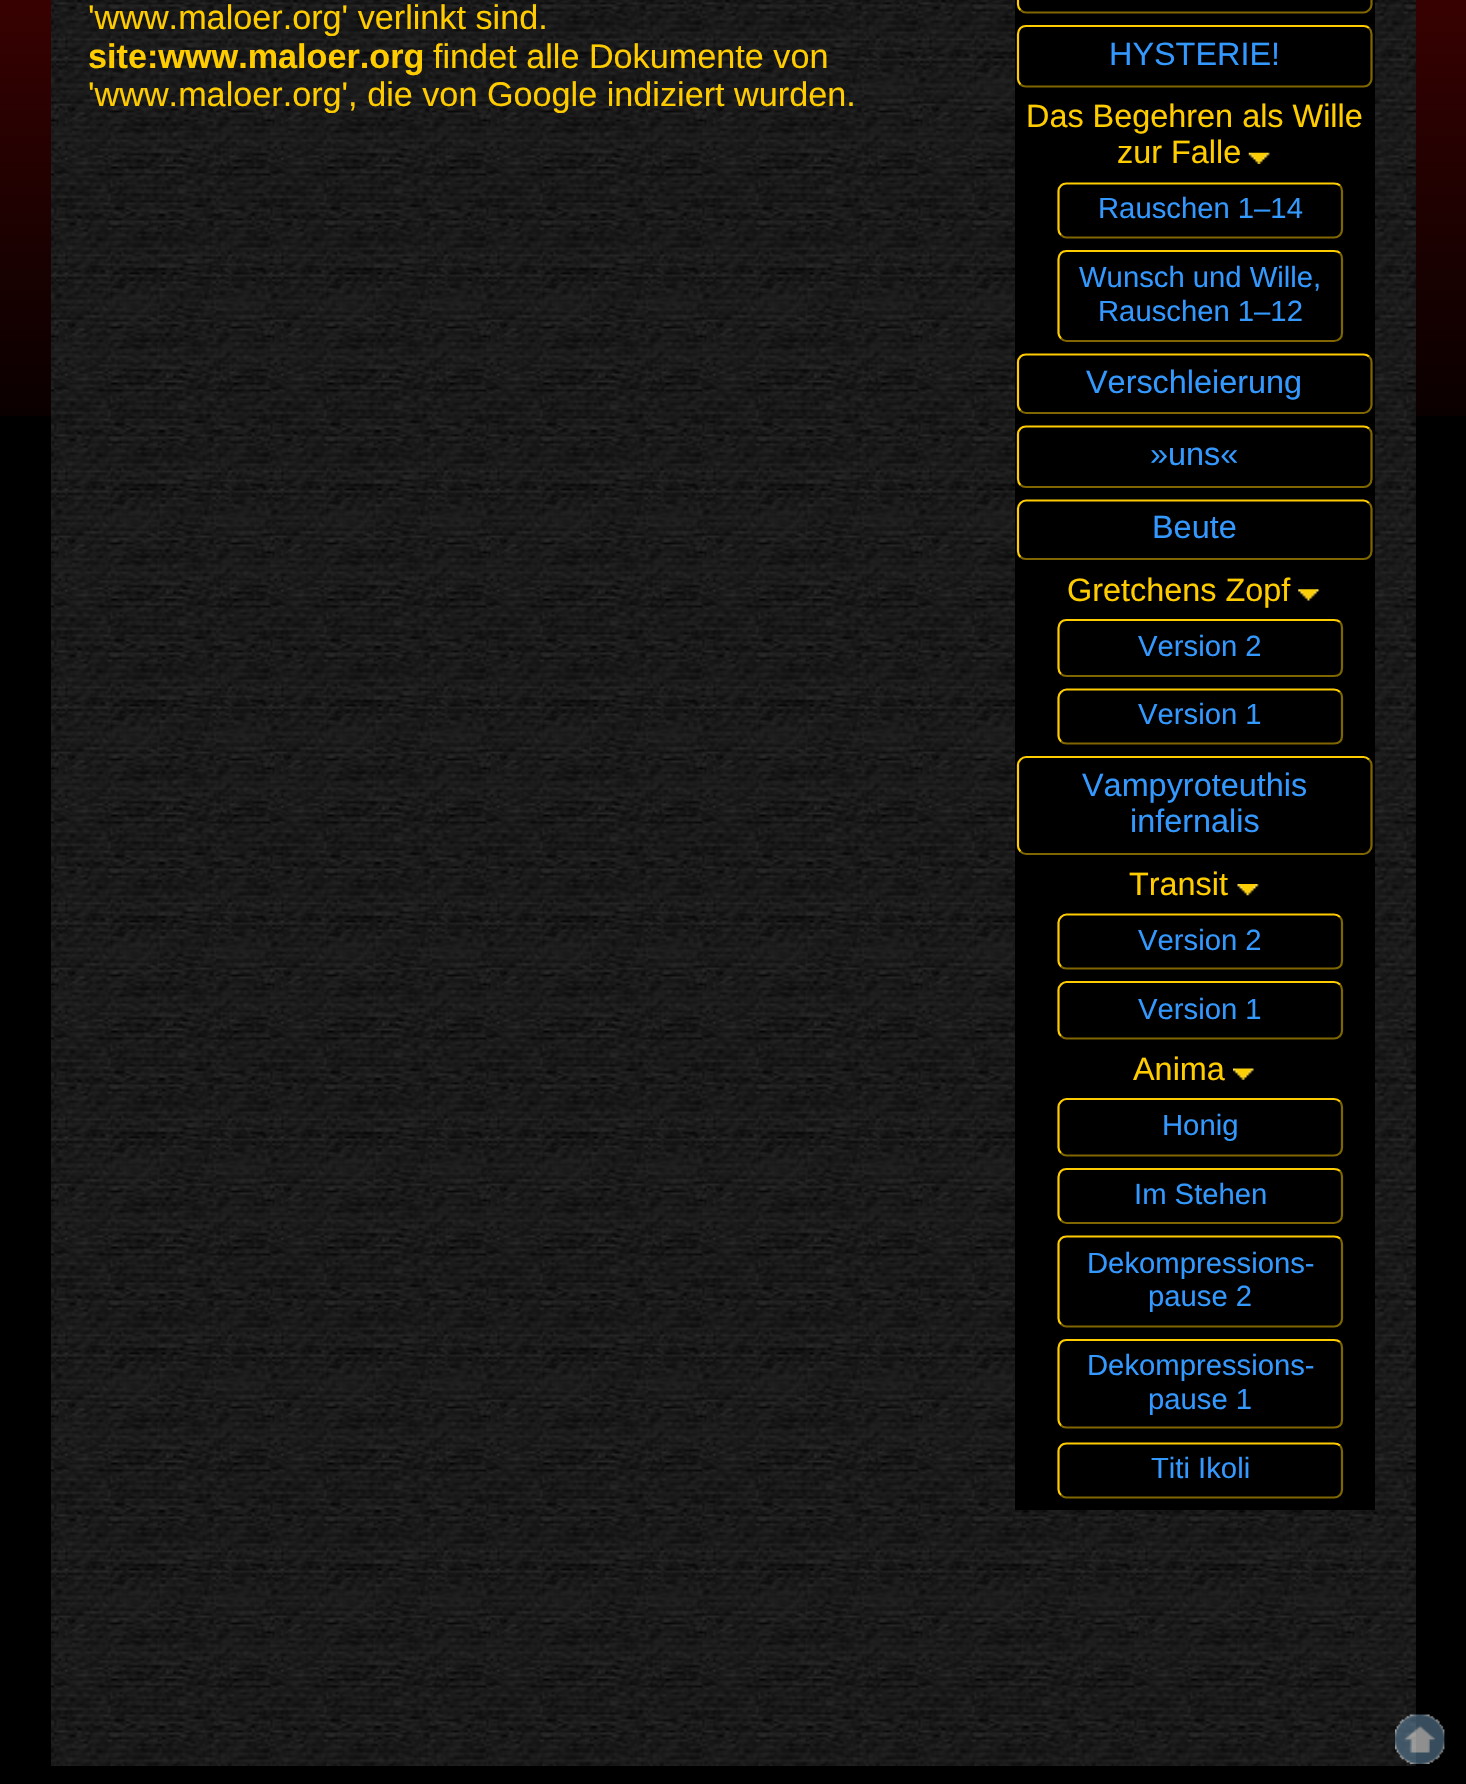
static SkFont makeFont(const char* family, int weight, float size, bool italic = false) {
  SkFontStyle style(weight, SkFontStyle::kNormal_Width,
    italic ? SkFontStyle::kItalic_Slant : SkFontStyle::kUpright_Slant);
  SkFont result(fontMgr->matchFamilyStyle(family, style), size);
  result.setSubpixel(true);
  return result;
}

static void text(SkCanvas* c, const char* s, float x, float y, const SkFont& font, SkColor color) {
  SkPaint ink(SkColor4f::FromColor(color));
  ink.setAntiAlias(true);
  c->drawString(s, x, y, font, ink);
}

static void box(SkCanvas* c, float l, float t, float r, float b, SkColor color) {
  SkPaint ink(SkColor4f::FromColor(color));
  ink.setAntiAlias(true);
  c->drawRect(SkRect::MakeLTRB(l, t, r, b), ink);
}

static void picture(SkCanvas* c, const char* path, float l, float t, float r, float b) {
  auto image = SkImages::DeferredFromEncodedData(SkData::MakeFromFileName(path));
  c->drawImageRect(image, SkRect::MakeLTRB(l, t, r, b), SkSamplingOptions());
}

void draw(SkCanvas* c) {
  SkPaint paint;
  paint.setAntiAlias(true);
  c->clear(0xff000000);
  picture(c, "img_01.png", 0, 0, 1466, 416);
  picture(c, "img_02.png", 51, 0, 1416, 1766);
  SkFont face1 = makeFont("Liberation Sans", 400, 34.2f);
  text(c, "'www.maloer.org' verlinkt sind.", 88, 29, face1, 0xffffcc00);
  SkFont face2 = makeFont("Liberation Sans", 700, 34.2f);
  text(c, "site:www.maloer.org", 88, 68, face2, 0xffffcc00);
  text(c, "findet alle Dokumente von", 433, 68, face1, 0xffffcc00);
  text(c, "'www.maloer.org', die von Google indiziert wurden.", 88, 106, face1, 0xffffcc00);
  box(c, 1015, 0, 1375, 1510, 0xff000000);
  paint.setStyle(SkPaint::kStroke_Style);
  paint.setStrokeWidth(2.2f);
  paint.setColor(0xff7f6600);
  c->drawPath(SkPathBuilder().moveTo(1369, -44).cubicTo(1370.5f, -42.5f, 1371.5f, -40.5f, 1371.5f, -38).lineTo(1371.5f, 4.5f).cubicTo(1371.5f, 6.5f, 1370.5f, 8.5f, 1369, 10).cubicTo(1367.5f, 11.5f, 1365.5f, 12.5f, 1363.5f, 12.5f).lineTo(1026, 12.5f).cubicTo(1024, 12.5f, 1022, 11.5f, 1020.5f, 10).detach(), paint);
  paint.setColor(0xffffcc00);
  c->drawPath(SkPathBuilder().moveTo(1020.5f, 10).cubicTo(1019, 8.5f, 1018, 6.5f, 1018, 4.5f).lineTo(1018, -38).cubicTo(1018, -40.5f, 1019, -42.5f, 1020.5f, -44).cubicTo(1022, -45.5f, 1024, -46, 1026, -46).lineTo(1363.5f, -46).cubicTo(1365.5f, -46, 1367.5f, -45.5f, 1369, -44).detach(), paint);
  paint.setColor(0xff7f6600);
  c->drawPath(SkPathBuilder().moveTo(1369, 28).cubicTo(1370.5f, 29.5f, 1371.5f, 31.5f, 1371.5f, 34).lineTo(1371.5f, 79).cubicTo(1371.5f, 81, 1370.5f, 83, 1369, 84.5f).cubicTo(1367.5f, 86, 1365.5f, 86.5f, 1363.5f, 86.5f).lineTo(1026, 86.5f).cubicTo(1024, 86.5f, 1022, 86, 1020.5f, 84.5f).detach(), paint);
  paint.setColor(0xffffcc00);
  c->drawPath(SkPathBuilder().moveTo(1020.5f, 84.5f).cubicTo(1019, 83, 1018, 81, 1018, 79).lineTo(1018, 34).cubicTo(1018, 31.5f, 1019, 29.5f, 1020.5f, 28).cubicTo(1022, 26.5f, 1024, 26, 1026, 26).lineTo(1363.5f, 26).cubicTo(1365.5f, 26, 1367.5f, 26.5f, 1369, 28).detach(), paint);
  SkFont face3 = makeFont("Liberation Sans", 400, 32.4f);
  text(c, "HYSTERIE!", 1109, 65, face3, 0xff3399ff);
  text(c, "Das Begehren als Wille", 1026, 127, face3, 0xffffcc00);
  text(c, "zur Falle", 1117, 163, face3, 0xffffcc00);
  picture(c, "img_03.png", 1248, 152, 1270, 164);
  paint.setColor(0xff7f6600);
  c->drawPath(SkPathBuilder().moveTo(1340, 185.5f).cubicTo(1341.5f, 187, 1342, 189, 1342, 191).lineTo(1342, 229.5f).cubicTo(1342, 231.5f, 1341.5f, 233.5f, 1340, 235).cubicTo(1338.5f, 236.5f, 1336.5f, 237.5f, 1334, 237.5f).lineTo(1066.5f, 237.5f).cubicTo(1064.5f, 237.5f, 1062.5f, 236.5f, 1061, 235).detach(), paint);
  paint.setColor(0xffffcc00);
  c->drawPath(SkPathBuilder().moveTo(1061, 235).cubicTo(1059.5f, 233.5f, 1058.5f, 231.5f, 1058.5f, 229.5f).lineTo(1058.5f, 191).cubicTo(1058.5f, 189, 1059.5f, 187, 1061, 185.5f).cubicTo(1062.5f, 184, 1064.5f, 183.5f, 1066.5f, 183.5f).lineTo(1334, 183.5f).cubicTo(1336.5f, 183.5f, 1338.5f, 184, 1340, 185.5f).detach(), paint);
  SkFont face4 = makeFont("Liberation Sans", 400, 29.25f);
  text(c, "Rauschen 1–14", 1098, 218, face4, 0xff3399ff);
  paint.setColor(0xff7f6600);
  c->drawPath(SkPathBuilder().moveTo(1340, 253).cubicTo(1341.5f, 254.5f, 1342, 256.5f, 1342, 259).lineTo(1342, 333).cubicTo(1342, 335, 1341.5f, 337, 1340, 338.5f).cubicTo(1338.5f, 340, 1336.5f, 341, 1334, 341).lineTo(1066.5f, 341).cubicTo(1064.5f, 341, 1062.5f, 340, 1061, 338.5f).detach(), paint);
  paint.setColor(0xffffcc00);
  c->drawPath(SkPathBuilder().moveTo(1061, 338.5f).cubicTo(1059.5f, 337, 1058.5f, 335, 1058.5f, 333).lineTo(1058.5f, 259).cubicTo(1058.5f, 256.5f, 1059.5f, 254.5f, 1061, 253).cubicTo(1062.5f, 251.5f, 1064.5f, 251, 1066.5f, 251).lineTo(1334, 251).cubicTo(1336.5f, 251, 1338.5f, 251.5f, 1340, 253).detach(), paint);
  text(c, "Wunsch und Wille,", 1079, 287, face4, 0xff3399ff);
  text(c, "Rauschen 1–12", 1098, 321, face4, 0xff3399ff);
  paint.setColor(0xff7f6600);
  c->drawPath(SkPathBuilder().moveTo(1369, 356.5f).cubicTo(1370.5f, 358, 1371.5f, 360, 1371.5f, 362).lineTo(1371.5f, 405).cubicTo(1371.5f, 407, 1370.5f, 409, 1369, 410.5f).cubicTo(1367.5f, 412, 1365.5f, 413, 1363.5f, 413).lineTo(1026, 413).cubicTo(1024, 413, 1022, 412, 1020.5f, 410.5f).detach(), paint);
  paint.setColor(0xffffcc00);
  c->drawPath(SkPathBuilder().moveTo(1020.5f, 410.5f).cubicTo(1019, 409, 1018, 407, 1018, 405).lineTo(1018, 362).cubicTo(1018, 360, 1019, 358, 1020.5f, 356.5f).cubicTo(1022, 355, 1024, 354.5f, 1026, 354.5f).lineTo(1363.5f, 354.5f).cubicTo(1365.5f, 354.5f, 1367.5f, 355, 1369, 356.5f).detach(), paint);
  text(c, "Verschleierung", 1086, 393, face3, 0xff3399ff);
  paint.setColor(0xff7f6600);
  c->drawPath(SkPathBuilder().moveTo(1369, 428.5f).cubicTo(1370.5f, 430, 1371.5f, 432, 1371.5f, 434).lineTo(1371.5f, 479).cubicTo(1371.5f, 481.5f, 1370.5f, 483.5f, 1369, 485).cubicTo(1367.5f, 486.5f, 1365.5f, 487, 1363.5f, 487).lineTo(1026, 487).cubicTo(1024, 487, 1022, 486.5f, 1020.5f, 485).detach(), paint);
  paint.setColor(0xffffcc00);
  c->drawPath(SkPathBuilder().moveTo(1020.5f, 485).cubicTo(1019, 483.5f, 1018, 481.5f, 1018, 479).lineTo(1018, 434).cubicTo(1018, 432, 1019, 430, 1020.5f, 428.5f).cubicTo(1022, 427, 1024, 426.5f, 1026, 426.5f).lineTo(1363.5f, 426.5f).cubicTo(1365.5f, 426.5f, 1367.5f, 427, 1369, 428.5f).detach(), paint);
  text(c, "»uns«", 1150, 465, face3, 0xff3399ff);
  paint.setColor(0xff7f6600);
  c->drawPath(SkPathBuilder().moveTo(1369, 503).cubicTo(1370.5f, 504.5f, 1371.5f, 506.5f, 1371.5f, 508.5f).lineTo(1371.5f, 551).cubicTo(1371.5f, 553.5f, 1370.5f, 555.5f, 1369, 557).cubicTo(1367.5f, 558.5f, 1365.5f, 559, 1363.5f, 559).lineTo(1026, 559).cubicTo(1024, 559, 1022, 558.5f, 1020.5f, 557).detach(), paint);
  paint.setColor(0xffffcc00);
  c->drawPath(SkPathBuilder().moveTo(1020.5f, 557).cubicTo(1019, 555.5f, 1018, 553.5f, 1018, 551).lineTo(1018, 508.5f).cubicTo(1018, 506.5f, 1019, 504.5f, 1020.5f, 503).cubicTo(1022, 501.5f, 1024, 500.5f, 1026, 500.5f).lineTo(1363.5f, 500.5f).cubicTo(1365.5f, 500.5f, 1367.5f, 501.5f, 1369, 503).detach(), paint);
  text(c, "Beute", 1152, 538, face3, 0xff3399ff);
  text(c, "Gretchens Zopf", 1067, 601, face3, 0xffffcc00);
  picture(c, "img_04.png", 1298, 589, 1320, 601);
  paint.setColor(0xff7f6600);
  c->drawPath(SkPathBuilder().moveTo(1340, 622).cubicTo(1341.5f, 623.5f, 1342, 625.5f, 1342, 628).lineTo(1342, 668).cubicTo(1342, 670.5f, 1341.5f, 672.5f, 1340, 674).cubicTo(1338.5f, 675.5f, 1336.5f, 676, 1334, 676).lineTo(1066.5f, 676).cubicTo(1064.5f, 676, 1062.5f, 675.5f, 1061, 674).detach(), paint);
  paint.setColor(0xffffcc00);
  c->drawPath(SkPathBuilder().moveTo(1061, 674).cubicTo(1059.5f, 672.5f, 1058.5f, 670.5f, 1058.5f, 668).lineTo(1058.5f, 628).cubicTo(1058.5f, 625.5f, 1059.5f, 623.5f, 1061, 622).cubicTo(1062.5f, 620.5f, 1064.5f, 620, 1066.5f, 620).lineTo(1334, 620).cubicTo(1336.5f, 620, 1338.5f, 620.5f, 1340, 622).detach(), paint);
  text(c, "Version 2", 1138, 656, face4, 0xff3399ff);
  paint.setColor(0xff7f6600);
  c->drawPath(SkPathBuilder().moveTo(1340, 692).cubicTo(1341.5f, 693.5f, 1342, 695.5f, 1342, 697.5f).lineTo(1342, 736).cubicTo(1342, 738, 1341.5f, 740, 1340, 741.5f).cubicTo(1338.5f, 743, 1336.5f, 743.5f, 1334, 743.5f).lineTo(1066.5f, 743.5f).cubicTo(1064.5f, 743.5f, 1062.5f, 743, 1061, 741.5f).detach(), paint);
  paint.setColor(0xffffcc00);
  c->drawPath(SkPathBuilder().moveTo(1061, 741.5f).cubicTo(1059.5f, 740, 1058.5f, 738, 1058.5f, 736).lineTo(1058.5f, 697.5f).cubicTo(1058.5f, 695.5f, 1059.5f, 693.5f, 1061, 692).cubicTo(1062.5f, 690.5f, 1064.5f, 689.5f, 1066.5f, 689.5f).lineTo(1334, 689.5f).cubicTo(1336.5f, 689.5f, 1338.5f, 690.5f, 1340, 692).detach(), paint);
  text(c, "Version 1", 1138, 724, face4, 0xff3399ff);
  paint.setColor(0xff7f6600);
  c->drawPath(SkPathBuilder().moveTo(1369, 759.5f).cubicTo(1370.5f, 761, 1371.5f, 763, 1371.5f, 765).lineTo(1371.5f, 846).cubicTo(1371.5f, 848, 1370.5f, 850, 1369, 851.5f).cubicTo(1367.5f, 853, 1365.5f, 854, 1363.5f, 854).lineTo(1026, 854).cubicTo(1024, 854, 1022, 853, 1020.5f, 851.5f).detach(), paint);
  paint.setColor(0xffffcc00);
  c->drawPath(SkPathBuilder().moveTo(1020.5f, 851.5f).cubicTo(1019, 850, 1018, 848, 1018, 846).lineTo(1018, 765).cubicTo(1018, 763, 1019, 761, 1020.5f, 759.5f).cubicTo(1022, 758, 1024, 757, 1026, 757).lineTo(1363.5f, 757).cubicTo(1365.5f, 757, 1367.5f, 758, 1369, 759.5f).detach(), paint);
  text(c, "Vampyroteuthis", 1082, 796, face3, 0xff3399ff);
  text(c, "infernalis", 1130, 832, face3, 0xff3399ff);
  text(c, "Transit", 1129, 895, face3, 0xffffcc00);
  picture(c, "img_05.png", 1237, 884, 1259, 896);
  paint.setColor(0xff7f6600);
  c->drawPath(SkPathBuilder().moveTo(1340, 917).cubicTo(1341.5f, 918.5f, 1342, 920.5f, 1342, 922.5f).lineTo(1342, 961).cubicTo(1342, 963, 1341.5f, 965, 1340, 966.5f).cubicTo(1338.5f, 968, 1336.5f, 968.5f, 1334, 968.5f).lineTo(1066.5f, 968.5f).cubicTo(1064.5f, 968.5f, 1062.5f, 968, 1061, 966.5f).detach(), paint);
  paint.setColor(0xffffcc00);
  c->drawPath(SkPathBuilder().moveTo(1061, 966.5f).cubicTo(1059.5f, 965, 1058.5f, 963, 1058.5f, 961).lineTo(1058.5f, 922.5f).cubicTo(1058.5f, 920.5f, 1059.5f, 918.5f, 1061, 917).cubicTo(1062.5f, 915.5f, 1064.5f, 914.5f, 1066.5f, 914.5f).lineTo(1334, 914.5f).cubicTo(1336.5f, 914.5f, 1338.5f, 915.5f, 1340, 917).detach(), paint);
  text(c, "Version 2", 1138, 950, face4, 0xff3399ff);
  paint.setColor(0xff7f6600);
  c->drawPath(SkPathBuilder().moveTo(1340, 984.5f).cubicTo(1341.5f, 986, 1342, 988, 1342, 990).lineTo(1342, 1030.5f).cubicTo(1342, 1032.5f, 1341.5f, 1034.5f, 1340, 1036).cubicTo(1338.5f, 1037.5f, 1336.5f, 1038.5f, 1334, 1038.5f).lineTo(1066.5f, 1038.5f).cubicTo(1064.5f, 1038.5f, 1062.5f, 1037.5f, 1061, 1036).detach(), paint);
  paint.setColor(0xffffcc00);
  c->drawPath(SkPathBuilder().moveTo(1061, 1036).cubicTo(1059.5f, 1034.5f, 1058.5f, 1032.5f, 1058.5f, 1030.5f).lineTo(1058.5f, 990).cubicTo(1058.5f, 988, 1059.5f, 986, 1061, 984.5f).cubicTo(1062.5f, 983, 1064.5f, 982, 1066.5f, 982).lineTo(1334, 982).cubicTo(1336.5f, 982, 1338.5f, 983, 1340, 984.5f).detach(), paint);
  text(c, "Version 1", 1138, 1019, face4, 0xff3399ff);
  text(c, "Anima", 1133, 1080, face3, 0xffffcc00);
  picture(c, "img_06.png", 1233, 1068, 1254, 1080);
  paint.setColor(0xff7f6600);
  c->drawPath(SkPathBuilder().moveTo(1340, 1101.5f).cubicTo(1341.5f, 1103, 1342, 1105, 1342, 1107).lineTo(1342, 1147.5f).cubicTo(1342, 1149.5f, 1341.5f, 1151.5f, 1340, 1153).cubicTo(1338.5f, 1154.5f, 1336.5f, 1155.5f, 1334, 1155.5f).lineTo(1066.5f, 1155.5f).cubicTo(1064.5f, 1155.5f, 1062.5f, 1154.5f, 1061, 1153).detach(), paint);
  paint.setColor(0xffffcc00);
  c->drawPath(SkPathBuilder().moveTo(1061, 1153).cubicTo(1059.5f, 1151.5f, 1058.5f, 1149.5f, 1058.5f, 1147.5f).lineTo(1058.5f, 1107).cubicTo(1058.5f, 1105, 1059.5f, 1103, 1061, 1101.5f).cubicTo(1062.5f, 1100, 1064.5f, 1099, 1066.5f, 1099).lineTo(1334, 1099).cubicTo(1336.5f, 1099, 1338.5f, 1100, 1340, 1101.5f).detach(), paint);
  text(c, "Honig", 1162, 1135, face4, 0xff3399ff);
  paint.setColor(0xff7f6600);
  c->drawPath(SkPathBuilder().moveTo(1340, 1171).cubicTo(1341.5f, 1172.5f, 1342, 1174.5f, 1342, 1177).lineTo(1342, 1215).cubicTo(1342, 1217, 1341.5f, 1219, 1340, 1220.5f).cubicTo(1338.5f, 1222, 1336.5f, 1223, 1334, 1223).lineTo(1066.5f, 1223).cubicTo(1064.5f, 1223, 1062.5f, 1222, 1061, 1220.5f).detach(), paint);
  paint.setColor(0xffffcc00);
  c->drawPath(SkPathBuilder().moveTo(1061, 1220.5f).cubicTo(1059.5f, 1219, 1058.5f, 1217, 1058.5f, 1215).lineTo(1058.5f, 1177).cubicTo(1058.5f, 1174.5f, 1059.5f, 1172.5f, 1061, 1171).cubicTo(1062.5f, 1169.5f, 1064.5f, 1169, 1066.5f, 1169).lineTo(1334, 1169).cubicTo(1336.5f, 1169, 1338.5f, 1169.5f, 1340, 1171).detach(), paint);
  text(c, "Im Stehen", 1134, 1204, face4, 0xff3399ff);
  paint.setColor(0xff7f6600);
  c->drawPath(SkPathBuilder().moveTo(1340, 1238.5f).cubicTo(1341.5f, 1240, 1342, 1242, 1342, 1244).lineTo(1342, 1318.5f).cubicTo(1342, 1320.5f, 1341.5f, 1322.5f, 1340, 1324).cubicTo(1338.5f, 1325.5f, 1336.5f, 1326.5f, 1334, 1326.5f).lineTo(1066.5f, 1326.5f).cubicTo(1064.5f, 1326.5f, 1062.5f, 1325.5f, 1061, 1324).detach(), paint);
  paint.setColor(0xffffcc00);
  c->drawPath(SkPathBuilder().moveTo(1061, 1324).cubicTo(1059.5f, 1322.5f, 1058.5f, 1320.5f, 1058.5f, 1318.5f).lineTo(1058.5f, 1244).cubicTo(1058.5f, 1242, 1059.5f, 1240, 1061, 1238.5f).cubicTo(1062.5f, 1237, 1064.5f, 1236.5f, 1066.5f, 1236.5f).lineTo(1334, 1236.5f).cubicTo(1336.5f, 1236.5f, 1338.5f, 1237, 1340, 1238.5f).detach(), paint);
  text(c, "Dekompressions-", 1087, 1273, face4, 0xff3399ff);
  text(c, "pause 2", 1148, 1306, face4, 0xff3399ff);
  paint.setColor(0xff7f6600);
  c->drawPath(SkPathBuilder().moveTo(1340, 1342).cubicTo(1341.5f, 1343.5f, 1342, 1345.5f, 1342, 1348).lineTo(1342, 1420).cubicTo(1342, 1422, 1341.5f, 1424, 1340, 1425.5f).cubicTo(1338.5f, 1427, 1336.5f, 1427.5f, 1334, 1427.5f).lineTo(1066.5f, 1427.5f).cubicTo(1064.5f, 1427.5f, 1062.5f, 1427, 1061, 1425.5f).detach(), paint);
  paint.setColor(0xffffcc00);
  c->drawPath(SkPathBuilder().moveTo(1061, 1425.5f).cubicTo(1059.5f, 1424, 1058.5f, 1422, 1058.5f, 1420).lineTo(1058.5f, 1348).cubicTo(1058.5f, 1345.5f, 1059.5f, 1343.5f, 1061, 1342).cubicTo(1062.5f, 1340.5f, 1064.5f, 1340, 1066.5f, 1340).lineTo(1334, 1340).cubicTo(1336.5f, 1340, 1338.5f, 1340.5f, 1340, 1342).detach(), paint);
  text(c, "Dekompressions-", 1087, 1375, face4, 0xff3399ff);
  text(c, "pause 1", 1148, 1409, face4, 0xff3399ff);
  paint.setColor(0xff7f6600);
  c->drawPath(SkPathBuilder().moveTo(1340, 1445.5f).cubicTo(1341.5f, 1447, 1342, 1449, 1342, 1451).lineTo(1342, 1489.5f).cubicTo(1342, 1491.5f, 1341.5f, 1493.5f, 1340, 1495).cubicTo(1338.5f, 1496.5f, 1336.5f, 1497.5f, 1334, 1497.5f).lineTo(1066.5f, 1497.5f).cubicTo(1064.5f, 1497.5f, 1062.5f, 1496.5f, 1061, 1495).detach(), paint);
  paint.setColor(0xffffcc00);
  c->drawPath(SkPathBuilder().moveTo(1061, 1495).cubicTo(1059.5f, 1493.5f, 1058.5f, 1491.5f, 1058.5f, 1489.5f).lineTo(1058.5f, 1451).cubicTo(1058.5f, 1449, 1059.5f, 1447, 1061, 1445.5f).cubicTo(1062.5f, 1444, 1064.5f, 1443.5f, 1066.5f, 1443.5f).lineTo(1334, 1443.5f).cubicTo(1336.5f, 1443.5f, 1338.5f, 1444, 1340, 1445.5f).detach(), paint);
  text(c, "Titi Ikoli", 1151, 1478, face4, 0xff3399ff);
  picture(c, "img_07.png", 1395, 1714, 1445, 1764);
}
